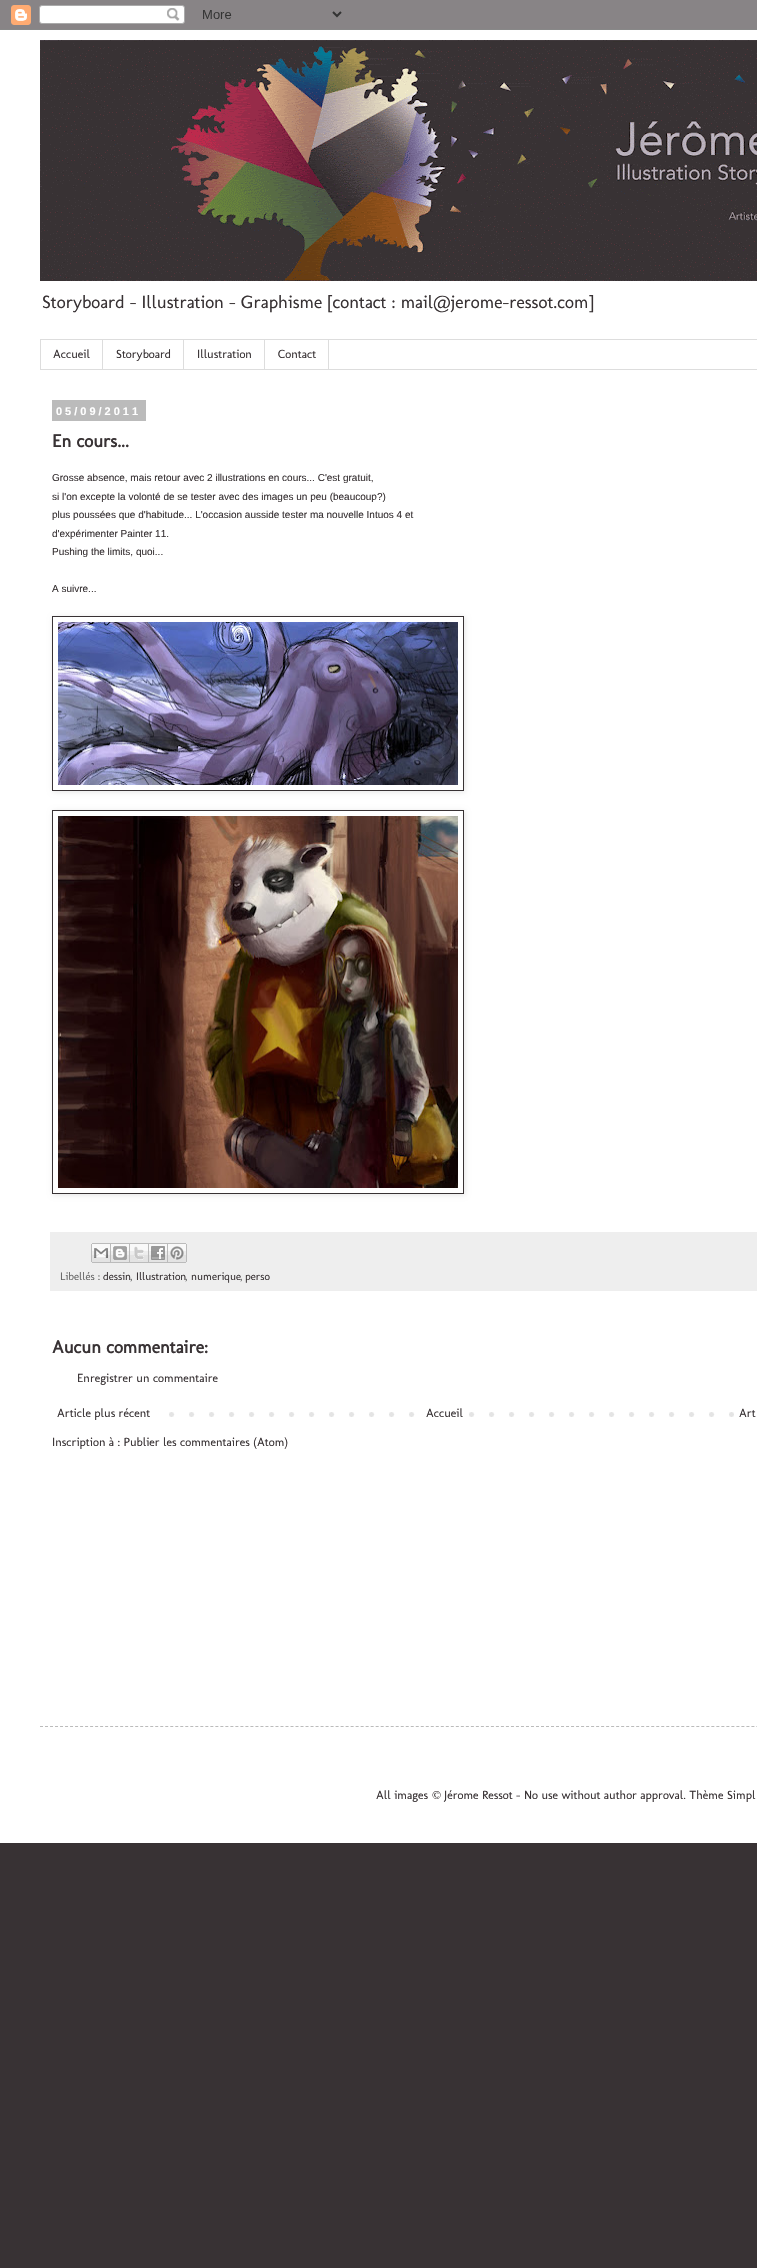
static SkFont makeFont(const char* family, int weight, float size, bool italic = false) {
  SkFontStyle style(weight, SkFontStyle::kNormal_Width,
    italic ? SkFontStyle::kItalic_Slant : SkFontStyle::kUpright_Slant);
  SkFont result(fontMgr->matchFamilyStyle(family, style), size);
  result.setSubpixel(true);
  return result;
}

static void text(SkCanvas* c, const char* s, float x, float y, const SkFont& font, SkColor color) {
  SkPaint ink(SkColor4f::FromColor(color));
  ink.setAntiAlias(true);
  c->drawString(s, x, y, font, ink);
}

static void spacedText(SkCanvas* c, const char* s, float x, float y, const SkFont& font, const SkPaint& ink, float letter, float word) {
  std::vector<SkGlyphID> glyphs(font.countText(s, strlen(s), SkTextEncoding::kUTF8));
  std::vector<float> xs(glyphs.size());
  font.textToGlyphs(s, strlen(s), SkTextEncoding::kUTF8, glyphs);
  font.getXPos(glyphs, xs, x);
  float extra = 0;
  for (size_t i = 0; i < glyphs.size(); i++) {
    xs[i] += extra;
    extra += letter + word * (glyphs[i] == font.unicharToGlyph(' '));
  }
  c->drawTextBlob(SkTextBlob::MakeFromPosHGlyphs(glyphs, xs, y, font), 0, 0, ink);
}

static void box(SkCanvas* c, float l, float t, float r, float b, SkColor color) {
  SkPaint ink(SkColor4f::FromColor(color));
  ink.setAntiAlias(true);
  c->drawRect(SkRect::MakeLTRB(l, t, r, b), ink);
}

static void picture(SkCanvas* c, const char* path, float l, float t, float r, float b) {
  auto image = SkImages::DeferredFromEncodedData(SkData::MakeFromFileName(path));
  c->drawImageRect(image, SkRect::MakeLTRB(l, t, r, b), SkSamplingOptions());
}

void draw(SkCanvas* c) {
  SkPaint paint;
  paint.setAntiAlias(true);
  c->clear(0xff383234);
  picture(c, "img_01.png", 0, 0, 757, 30);
  box(c, 0, 30, 757, 1843, 0xffffffff);
  picture(c, "img_02.png", 40, 40, 757, 281);
  SkFont face1 = makeFont("Molengo", 400, 18);
  text(c, "Storyboard - Illustration - Graphisme [contact : mail@jerome-ressot.com]", 42, 308, face1, 0xff383234);
  paint.setStyle(SkPaint::kStroke_Style);
  paint.setStrokeWidth(1);
  paint.setColor(0xffdddddd);
  c->drawRect(SkRect::MakeLTRB(40.5f, 339.5f, 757.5f, 369.5f), paint);
  box(c, 102, 340, 103, 369, 0xffdddddd);
  SkFont face2 = makeFont("Molengo", 400, 12);
  text(c, "Accueil", 53, 358, face2, 0xff383234);
  box(c, 183, 340, 184, 369, 0xffdddddd);
  text(c, "Storyboard", 116, 358, face2, 0xff383234);
  box(c, 264, 340, 265, 369, 0xffdddddd);
  text(c, "Illustration", 197, 358, face2, 0xff383234);
  box(c, 328, 340, 329, 369, 0xffdddddd);
  text(c, "Contact", 278, 358, face2, 0xff383234);
  box(c, 52, 400, 146, 421, 0xffbbbbbb);
  SkFont face3 = makeFont("Liberation Sans", 700, 11);
  paint.setStyle(SkPaint::kFill_Style);
  paint.setColor(0xffffffff);
  spacedText(c, "05/09/2011", 56, 415, face3, paint, 3, 0);
  SkFont face4 = makeFont("Molengo", 700, 18);
  text(c, "En cours...", 52, 447, face4, 0xff383234);
  SkFont face5 = makeFont("Liberation Sans", 400, 10);
  text(c, "Grosse absence, mais retour avec 2 illustrations en cours... C'est gratuit,", 52, 481, face5, 0xff383234);
  text(c, "si l'on excepte la volonté de se tester avec des images un peu (beaucoup?)", 52, 500, face5, 0xff383234);
  text(c, "plus poussées que d'habitude... L'occasion ausside tester ma nouvelle Intuos 4 et", 52, 518, face5, 0xff383234);
  text(c, "d'expérimenter Painter 11.", 52, 537, face5, 0xff383234);
  text(c, "Pushing the limits, quoi...", 52, 555, face5, 0xff383234);
  text(c, "A suivre...", 52, 592, face5, 0xff383234);
  c->save();
  c->clipPath(SkPathBuilder(SkPathFillType::kEvenOdd).moveTo(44, 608).lineTo(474, 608).lineTo(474, 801).lineTo(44, 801).close().moveTo(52, 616).lineTo(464, 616).lineTo(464, 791).lineTo(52, 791).close().detach(), true);
  paint.setColor(0x1a000000);
  paint.setMaskFilter(SkMaskFilter::MakeBlur(kNormal_SkBlurStyle, 2.5f));
  c->drawRect(SkRect::MakeLTRB(53, 617, 465, 792), paint);
  paint.setMaskFilter(nullptr);
  c->restore();
  paint.setStyle(SkPaint::kStroke_Style);
  paint.setColor(0xff383234);
  c->drawRect(SkRect::MakeLTRB(52.5f, 616.5f, 463.5f, 790.5f), paint);
  picture(c, "img_03.png", 58, 622, 458, 785);
  c->save();
  c->clipPath(SkPathBuilder(SkPathFillType::kEvenOdd).moveTo(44, 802).lineTo(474, 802).lineTo(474, 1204).lineTo(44, 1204).close().moveTo(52, 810).lineTo(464, 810).lineTo(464, 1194).lineTo(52, 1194).close().detach(), true);
  paint.setStyle(SkPaint::kFill_Style);
  paint.setColor(0x1a000000);
  paint.setMaskFilter(SkMaskFilter::MakeBlur(kNormal_SkBlurStyle, 2.5f));
  c->drawRect(SkRect::MakeLTRB(53, 811, 465, 1195), paint);
  paint.setMaskFilter(nullptr);
  c->restore();
  paint.setStyle(SkPaint::kStroke_Style);
  paint.setColor(0xff383234);
  c->drawRect(SkRect::MakeLTRB(52.5f, 810.5f, 463.5f, 1193.5f), paint);
  picture(c, "img_04.png", 58, 816, 458, 1188);
  box(c, 50, 1232, 757, 1291, 0xffeeeeee);
  picture(c, "img_05.png", 91, 1243, 111, 1263);
  picture(c, "img_06.png", 111, 1243, 130, 1263);
  picture(c, "img_07.png", 130, 1243, 149, 1263);
  picture(c, "img_08.png", 149, 1243, 168, 1263);
  picture(c, "img_09.png", 168, 1243, 187, 1263);
  SkFont face6 = makeFont("Molengo", 400, 11);
  text(c, "Libellés :", 60, 1280, face6, 0xff666666);
  text(c, "dessin", 103, 1280, face6, 0xff383234);
  text(c, ",", 130, 1280, face6, 0xff666666);
  text(c, "Illustration", 136, 1280, face6, 0xff383234);
  text(c, ",", 185, 1280, face6, 0xff666666);
  text(c, "numerique", 191, 1280, face6, 0xff383234);
  text(c, ",", 240, 1280, face6, 0xff666666);
  text(c, "perso", 245, 1280, face6, 0xff383234);
  text(c, "Aucun commentaire:", 52, 1353, face4, 0xff383234);
  text(c, "Enregistrer un commentaire", 77, 1382, face2, 0xff383234);
  picture(c, "img_10.png", 169, 1412, 734, 1417);
  text(c, "Article plus récent", 57, 1417, face2, 0xff383234);
  box(c, 429, 1412, 455, 1417, 0xffffffff);
  text(c, "Accueil", 426, 1417, face2, 0xff383234);
  text(c, "Art", 739, 1417, face2, 0xff383234);
  text(c, "Inscription à : Publier les commentaires (Atom)", 52, 1446, face2, 0xff383234);
  paint.setColor(0xffbbbbbb);
  paint.setPathEffect(SkDashPathEffect::Make({{3, 2.01f}}, 0));
  c->drawPath(SkPathBuilder().moveTo(40, 1726.5f).lineTo(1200, 1726.5f).detach(), paint);
  paint.setPathEffect(nullptr);
  text(c, "All images", 376, 1799, face2, 0xff383234);
  SkFont face7 = makeFont("Liberation Serif", 400, 12);
  text(c, "©", 432, 1799, face7, 0xff383234);
  text(c, "Jérome Ressot - No use without author approval. Thème Simpl", 444, 1799, face2, 0xff383234);
}
